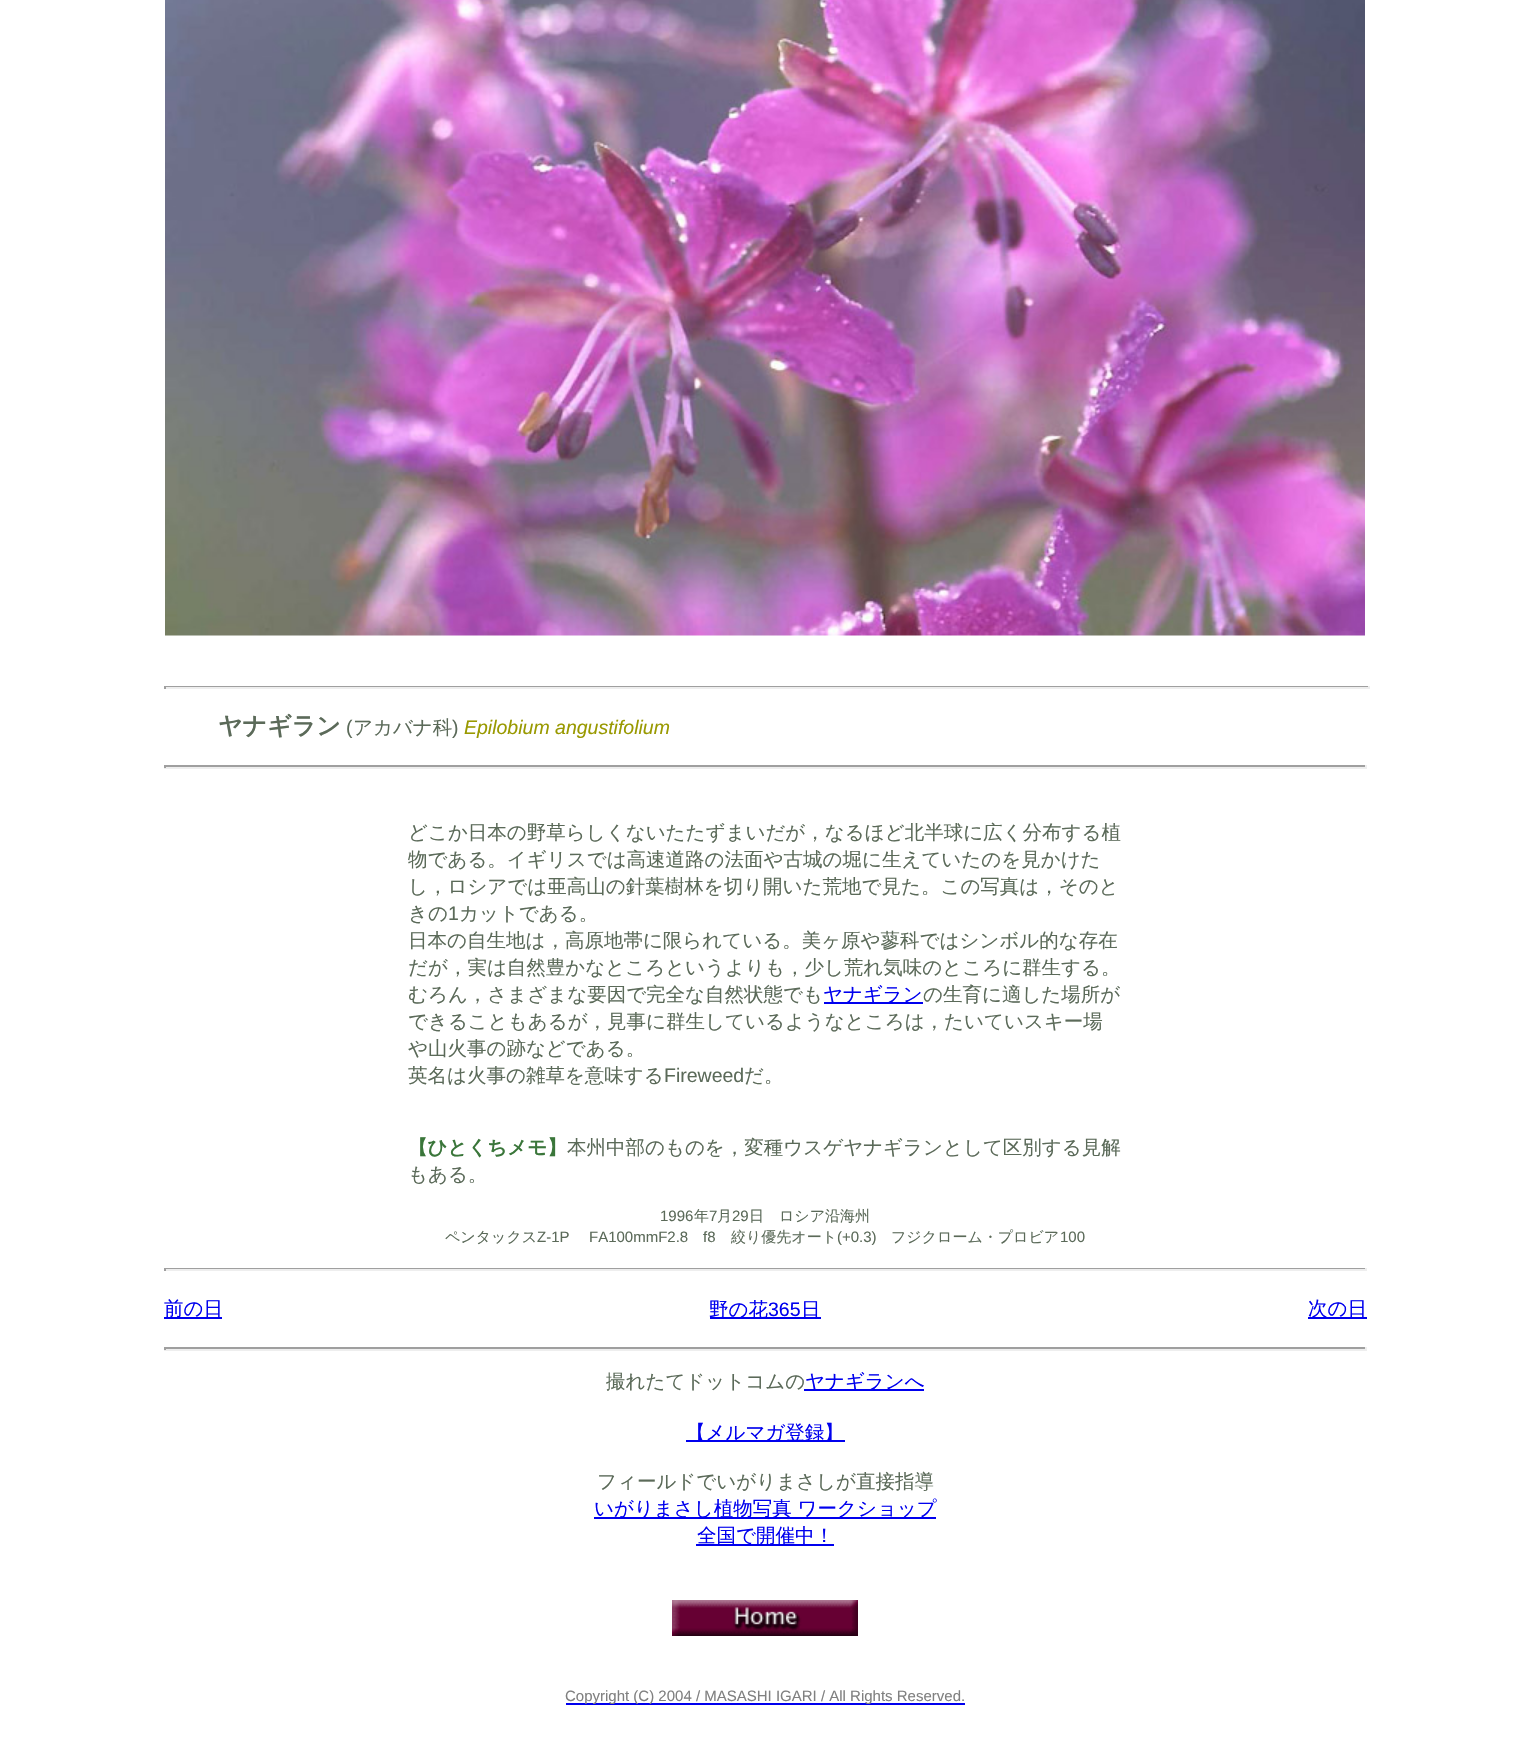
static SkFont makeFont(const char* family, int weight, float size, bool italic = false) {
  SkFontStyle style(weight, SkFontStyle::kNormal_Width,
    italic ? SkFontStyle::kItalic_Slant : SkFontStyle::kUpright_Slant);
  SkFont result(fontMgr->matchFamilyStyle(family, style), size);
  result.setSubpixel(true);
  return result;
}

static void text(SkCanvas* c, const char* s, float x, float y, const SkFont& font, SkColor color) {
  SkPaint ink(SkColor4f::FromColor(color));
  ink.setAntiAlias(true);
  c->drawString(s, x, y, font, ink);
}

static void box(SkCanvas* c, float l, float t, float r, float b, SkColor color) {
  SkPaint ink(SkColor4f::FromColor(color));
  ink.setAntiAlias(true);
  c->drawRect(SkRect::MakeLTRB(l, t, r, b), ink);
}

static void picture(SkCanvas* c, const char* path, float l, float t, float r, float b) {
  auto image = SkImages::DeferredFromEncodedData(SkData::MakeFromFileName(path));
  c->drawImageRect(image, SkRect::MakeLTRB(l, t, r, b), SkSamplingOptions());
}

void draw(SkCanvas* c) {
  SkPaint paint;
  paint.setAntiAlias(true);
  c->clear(0xffffffff);
  picture(c, "img_01.png", 165, 0, 1365, 636);
  box(c, 164, 686, 1370, 687, 0xff9f9f9f);
  box(c, 1368, 686, 1370, 689, 0xffeeeeee);
  box(c, 164, 687, 1370, 689, 0xffeeeeee);
  box(c, 164, 686, 166, 689, 0xff9f9f9f);
  SkFont face1 = makeFont("WenQuanYi Zen Hei", 700, 24);
  text(c, "ヤナギラン", 218, 734, face1, 0xff5b6a59);
  SkFont face2 = makeFont("Liberation Sans", 400, 19.5f);
  text(c, "(", 346, 734, face2, 0xff5b6a59);
  SkFont face3 = makeFont("WenQuanYi Zen Hei", 500, 19.5f);
  text(c, "アカバナ科", 353, 734, face3, 0xff5b6a59);
  text(c, ")", 452, 734, face2, 0xff5b6a59);
  SkFont face4 = makeFont("Liberation Sans", 400, 19.5f, true);
  text(c, "Epilobium angustifolium", 464, 734, face4, 0xff999900);
  box(c, 164, 765, 1367, 767, 0xff9f9f9f);
  box(c, 1365, 765, 1367, 768, 0xffeeeeee);
  box(c, 164, 767, 1367, 769, 0xffeeeeee);
  box(c, 164, 765, 166, 768, 0xff9f9f9f);
  text(c, "どこか日本の野草らしくないたたずまいだが，なるほど北半球に広く分布する植", 408, 839, face3, 0xff5b6a59);
  text(c, "物である。イギリスでは高速道路の法面や古城の堀に生えていたのを見かけた", 408, 866, face3, 0xff5b6a59);
  text(c, "し，ロシアでは亜高山の針葉樹林を切り開いた荒地で見た。この写真は，そのと", 408, 893, face3, 0xff5b6a59);
  text(c, "きの", 408, 920, face3, 0xff5b6a59);
  text(c, "1", 448, 920, face2, 0xff5b6a59);
  text(c, "カットである。", 459, 920, face3, 0xff5b6a59);
  text(c, "日本の自生地は，高原地帯に限られている。美ヶ原や蓼科ではシンボル的な存在", 408, 947, face3, 0xff5b6a59);
  text(c, "だが，実は自然豊かなところというよりも，少し荒れ気味のところに群生する。", 408, 974, face3, 0xff5b6a59);
  text(c, "むろん，さまざまな要因で完全な自然状態でも", 408, 1001, face3, 0xff5b6a59);
  box(c, 824, 1002, 923, 1004, 0xff0000ee);
  text(c, "ヤナギラン", 823, 1001, face3, 0xff0000ee);
  text(c, "の生育に適した場所が", 923, 1001, face3, 0xff5b6a59);
  text(c, "できることもあるが，見事に群生しているようなところは，たいていスキー場", 408, 1028, face3, 0xff5b6a59);
  text(c, "や山火事の跡などである。", 408, 1055, face3, 0xff5b6a59);
  text(c, "英名は火事の雑草を意味する", 408, 1082, face3, 0xff5b6a59);
  text(c, "Fireweed", 664, 1082, face2, 0xff5b6a59);
  text(c, "だ。", 744, 1082, face3, 0xff5b6a59);
  SkFont face5 = makeFont("WenQuanYi Zen Hei", 700, 19.5f);
  text(c, "【ひとくちメモ】", 408, 1154, face5, 0xff3a763a);
  text(c, "本州中部のものを，変種ウスゲヤナギランとして区別する見解", 567, 1154, face3, 0xff5b6a59);
  text(c, "もある。", 408, 1181, face3, 0xff5b6a59);
  SkFont face6 = makeFont("Liberation Sans", 400, 15);
  text(c, "1996", 660, 1221, face6, 0xff5b6a59);
  SkFont face7 = makeFont("WenQuanYi Zen Hei", 500, 15);
  text(c, "年", 694, 1221, face7, 0xff5b6a59);
  text(c, "7", 709, 1221, face6, 0xff5b6a59);
  text(c, "月", 717, 1221, face7, 0xff5b6a59);
  text(c, "29", 732, 1221, face6, 0xff5b6a59);
  text(c, "日　ロシア沿海州", 749, 1221, face7, 0xff5b6a59);
  text(c, "ペンタックス", 445, 1242, face7, 0xff5b6a59);
  text(c, "Z-1P", 537, 1242, face6, 0xff5b6a59);
  text(c, "FA100mmF2.8", 589, 1242, face6, 0xff5b6a59);
  text(c, "f8", 703, 1242, face6, 0xff5b6a59);
  text(c, "絞り優先オート", 731, 1242, face7, 0xff5b6a59);
  text(c, "(+0.3)", 837, 1242, face6, 0xff5b6a59);
  text(c, "フジクローム・プロビア", 891, 1242, face7, 0xff5b6a59);
  text(c, "100", 1060, 1242, face6, 0xff5b6a59);
  box(c, 164, 1268, 1367, 1269, 0xff9f9f9f);
  box(c, 1365, 1268, 1367, 1271, 0xffeeeeee);
  box(c, 164, 1269, 1367, 1271, 0xffeeeeee);
  box(c, 164, 1268, 166, 1271, 0xff9f9f9f);
  box(c, 164, 1317, 222, 1319, 0xff0000ee);
  text(c, "前の日", 164, 1315, face3, 0xff0000ee);
  box(c, 710, 1317, 821, 1319, 0xff0000ee);
  text(c, "野の花", 709, 1316, face3, 0xff0000ee);
  text(c, "365", 768, 1316, face2, 0xff0000ee);
  text(c, "日", 801, 1316, face3, 0xff0000ee);
  box(c, 1308, 1317, 1367, 1319, 0xff0000ee);
  text(c, "次の日", 1308, 1315, face3, 0xff0000ee);
  box(c, 164, 1347, 1367, 1349, 0xff9f9f9f);
  box(c, 1365, 1347, 1367, 1350, 0xffeeeeee);
  box(c, 164, 1349, 1367, 1351, 0xffeeeeee);
  box(c, 164, 1347, 166, 1350, 0xff9f9f9f);
  text(c, "撮れたてドットコムの", 606, 1388, face3, 0xff5b6a59);
  box(c, 804, 1389, 924, 1391, 0xff0000ee);
  text(c, "ヤナギランへ", 805, 1388, face3, 0xff0000ee);
  box(c, 686, 1440, 845, 1442, 0xff0000ee);
  text(c, "【メルマガ登録】", 686, 1439, face3, 0xff0000ee);
  text(c, "フィールドでいがりまさしが直接指導", 597, 1488, face3, 0xff5b6a59);
  box(c, 594, 1517, 936, 1519, 0xff0000ee);
  text(c, "いがりまさし植物写真 ワークショップ", 594, 1515, face3, 0xff0000ee);
  box(c, 696, 1544, 834, 1546, 0xff0000ee);
  text(c, "全国で開催中！", 697, 1542, face3, 0xff0000ee);
  picture(c, "img_02.png", 672, 1600, 858, 1636);
  box(c, 566, 1703, 965, 1705, 0xff0000ee);
  text(c, "Copyright (C) 2004 / MASASHI IGARI / All Rights Reserved.", 565, 1701, face6, 0xff808080);
}
